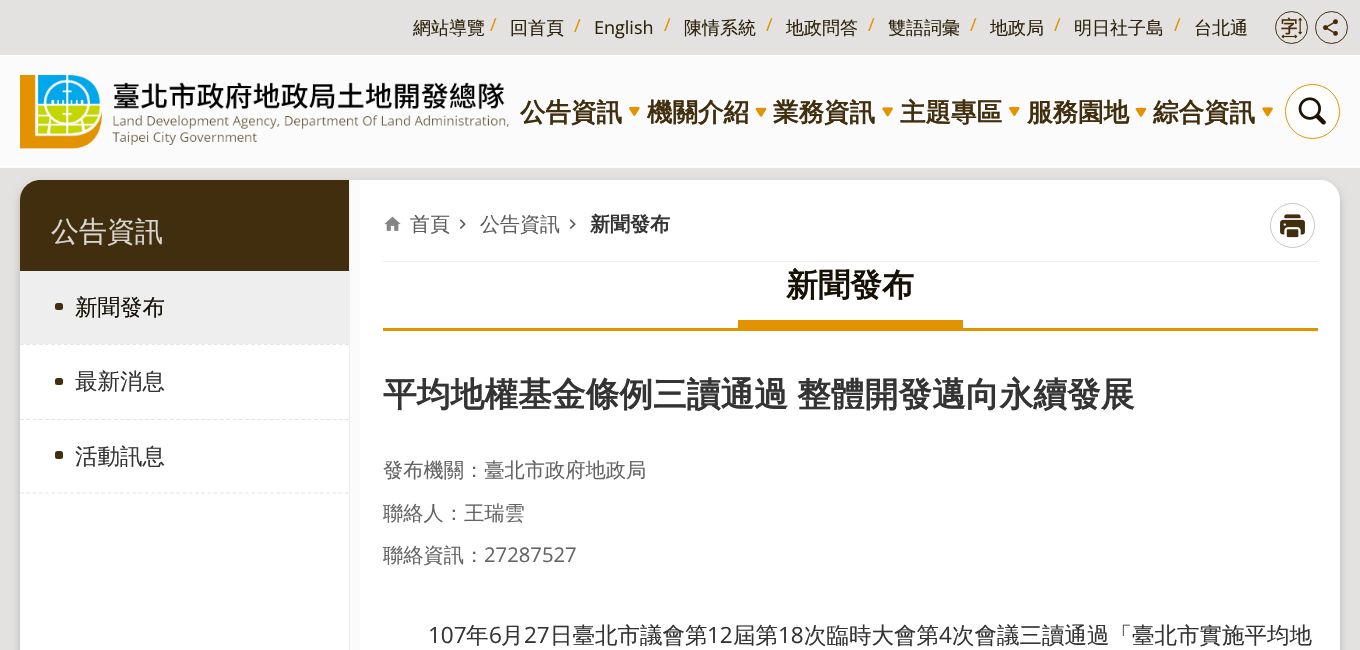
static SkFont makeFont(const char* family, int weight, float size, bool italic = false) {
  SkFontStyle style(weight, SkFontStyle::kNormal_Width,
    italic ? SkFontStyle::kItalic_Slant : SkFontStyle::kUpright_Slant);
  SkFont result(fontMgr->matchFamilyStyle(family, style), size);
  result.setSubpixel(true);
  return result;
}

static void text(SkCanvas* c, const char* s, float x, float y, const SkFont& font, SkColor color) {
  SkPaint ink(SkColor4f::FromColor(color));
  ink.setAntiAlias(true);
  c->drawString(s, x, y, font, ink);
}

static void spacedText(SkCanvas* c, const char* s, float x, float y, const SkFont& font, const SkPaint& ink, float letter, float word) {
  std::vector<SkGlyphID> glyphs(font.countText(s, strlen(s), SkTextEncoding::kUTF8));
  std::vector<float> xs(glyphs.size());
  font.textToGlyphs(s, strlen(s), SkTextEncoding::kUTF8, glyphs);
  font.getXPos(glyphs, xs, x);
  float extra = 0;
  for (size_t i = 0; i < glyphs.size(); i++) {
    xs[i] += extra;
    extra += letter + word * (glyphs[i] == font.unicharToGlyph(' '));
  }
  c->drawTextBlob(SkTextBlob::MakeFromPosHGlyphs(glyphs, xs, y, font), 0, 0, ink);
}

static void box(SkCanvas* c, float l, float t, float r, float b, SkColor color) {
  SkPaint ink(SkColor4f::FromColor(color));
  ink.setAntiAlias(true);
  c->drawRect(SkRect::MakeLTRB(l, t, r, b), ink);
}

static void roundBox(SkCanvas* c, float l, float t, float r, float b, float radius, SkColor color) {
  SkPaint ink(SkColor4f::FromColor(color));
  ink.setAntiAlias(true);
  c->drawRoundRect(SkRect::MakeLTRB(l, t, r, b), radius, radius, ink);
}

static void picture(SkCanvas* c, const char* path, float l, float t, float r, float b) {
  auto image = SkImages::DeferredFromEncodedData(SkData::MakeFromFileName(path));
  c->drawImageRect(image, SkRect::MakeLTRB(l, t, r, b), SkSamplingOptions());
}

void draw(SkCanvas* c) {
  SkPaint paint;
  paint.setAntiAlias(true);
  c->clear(0xffe3e2e0);
  SkFont face1 = makeFont("WenQuanYi Zen Hei", 500, 18);
  text(c, "網站導覽", 413, 34, face1, 0xff2d210b);
  SkFont face2 = makeFont("Open Sans", 400, 18);
  text(c, "/", 490, 31, face2, 0xffe39300);
  text(c, "回首頁", 510, 34, face1, 0xff2d210b);
  text(c, "/", 574, 32, face2, 0xffe39300);
  text(c, "English", 594, 34, face2, 0xff2d210b);
  text(c, "/", 664, 31, face2, 0xffe39300);
  text(c, "陳情系統", 684, 34, face1, 0xff2d210b);
  text(c, "/", 766, 31, face2, 0xffe39300);
  text(c, "地政問答", 786, 34, face1, 0xff2d210b);
  text(c, "/", 868, 31, face2, 0xffe39300);
  text(c, "雙語詞彙", 888, 34, face1, 0xff2d210b);
  text(c, "/", 970, 31, face2, 0xffe39300);
  text(c, "地政局", 990, 34, face1, 0xff2d210b);
  text(c, "/", 1054, 31, face2, 0xffe39300);
  text(c, "明日社子島", 1074, 34, face1, 0xff2d210b);
  text(c, "/", 1174, 31, face2, 0xffe39300);
  text(c, "台北通", 1194, 34, face1, 0xff2d210b);
  paint.setStyle(SkPaint::kStroke_Style);
  paint.setStrokeWidth(1);
  paint.setColor(0xff402e0e);
  c->drawCircle(1291.5f, 27.5f, 16, paint);
  picture(c, "img_01.png", 1281, 17, 1302, 39);
  c->drawCircle(1331.5f, 27.5f, 16, paint);
  picture(c, "img_02.png", 1323, 19, 1338, 36);
  box(c, 0, 56, 1360, 168, 0xfffbfbfb);
  box(c, 0, 55, 1360, 56, 0xffffffff);
  box(c, 0, 166, 1360, 167, 0xffffffff);
  picture(c, "img_03.png", 20, 75, 509, 149);
  SkFont face3 = makeFont("WenQuanYi Zen Hei", 700, 25.5f);
  text(c, "公告資訊", 520, 121, face3, 0xff402e0e);
  picture(c, "img_04.png", 629, 106, 640, 116);
  text(c, "機關介紹", 647, 121, face3, 0xff402e0e);
  picture(c, "img_05.png", 755, 107, 767, 117);
  text(c, "業務資訊", 773, 121, face3, 0xff402e0e);
  picture(c, "img_06.png", 882, 107, 893, 117);
  text(c, "主題專區", 900, 121, face3, 0xff402e0e);
  picture(c, "img_07.png", 1009, 106, 1020, 116);
  text(c, "服務園地", 1027, 121, face3, 0xff402e0e);
  picture(c, "img_08.png", 1135, 107, 1147, 117);
  text(c, "綜合資訊", 1153, 121, face3, 0xff402e0e);
  picture(c, "img_09.png", 1262, 107, 1273, 117);
  paint.setStyle(SkPaint::kFill_Style);
  paint.setColor(0xffffffff);
  c->drawCircle(1312.5f, 111.5f, 27, paint);
  paint.setStyle(SkPaint::kStroke_Style);
  paint.setColor(0xffe39300);
  c->drawCircle(1312.5f, 111.5f, 27, paint);
  picture(c, "img_10.png", 1298, 97, 1326, 125);
  paint.setStyle(SkPaint::kFill_Style);
  paint.setColor(0x33000000);
  paint.setMaskFilter(SkMaskFilter::MakeBlur(kNormal_SkBlurStyle, 4));
  c->drawRoundRect(SkRect::MakeLTRB(20, 184, 1340, 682), 20, 20, paint);
  paint.setMaskFilter(nullptr);
  roundBox(c, 20, 180, 1340, 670, 20, 0xffffffff);
  box(c, 350, 180, 360, 650, 0xfffbfbfb);
  box(c, 349, 180, 350, 650, 0xffeeeeee);
  paint.setColor(0xff402e0e);
  c->drawPath(SkPathBuilder().moveTo(40, 180).lineTo(349, 180).lineTo(349, 271).lineTo(20, 271).lineTo(20, 200).cubicTo(20, 189, 29, 180, 40, 180).close().detach(), paint);
  SkFont face4 = makeFont("WenQuanYi Zen Hei", 500, 28);
  text(c, "公告資訊", 51, 241, face4, 0xffd9d5cf);
  paint.setStyle(SkPaint::kStroke_Style);
  paint.setStrokeWidth(1.2f);
  paint.setColor(0xffe4e4e4);
  paint.setPathEffect(SkDashPathEffect::Make({{3.75f, 2.5f}}, 0));
  c->drawPath(SkPathBuilder().moveTo(20, 344.5f).lineTo(349, 344.5f).detach(), paint);
  paint.setPathEffect(nullptr);
  box(c, 20, 271, 349, 344, 0xffeeeeee);
  roundBox(c, 55, 303, 63, 310, 2.5f, 0xff402e0e);
  SkFont face5 = makeFont("WenQuanYi Zen Hei", 500, 22.5f);
  text(c, "新聞發布", 75, 315, face5, 0xff161005);
  paint.setPathEffect(SkDashPathEffect::Make({{3.75f, 2.5f}}, 0));
  c->drawPath(SkPathBuilder().moveTo(20, 419.5f).lineTo(349, 419.5f).detach(), paint);
  paint.setPathEffect(nullptr);
  roundBox(c, 55, 378, 63, 385, 2.5f, 0xff402e0e);
  text(c, "最新消息", 75, 389, face5, 0xff343434);
  paint.setPathEffect(SkDashPathEffect::Make({{3.75f, 2.5f}}, 0));
  c->drawPath(SkPathBuilder().moveTo(20, 493).lineTo(349, 493).detach(), paint);
  paint.setPathEffect(nullptr);
  roundBox(c, 55, 451, 63, 459, 2.5f, 0xff402e0e);
  text(c, "活動訊息", 75, 464, face5, 0xff343434);
  c->save();
  c->clipPath(SkPathBuilder().moveTo(40, 180).lineTo(1320, 180).cubicTo(1331, 180, 1340, 189, 1340, 200).lineTo(1340, 1234).cubicTo(1340, 1245, 1331, 1254, 1320, 1254).lineTo(40, 1254).cubicTo(29, 1254, 20, 1245, 20, 1234).lineTo(20, 200).cubicTo(20, 189, 29, 180, 40, 180).close().detach(), true);
  box(c, 370, 180, 1330, 650, 0xffffffff);
  c->restore();
  picture(c, "img_11.png", 384, 216, 401, 231);
  SkFont face6 = makeFont("WenQuanYi Zen Hei", 500, 20);
  text(c, "首頁", 410, 231, face6, 0xff5d5d5d);
  picture(c, "img_12.png", 459, 219, 466, 229);
  text(c, "公告資訊", 480, 231, face6, 0xff5d5d5d);
  picture(c, "img_12.png", 569, 219, 576, 229);
  SkFont face7 = makeFont("WenQuanYi Zen Hei", 700, 20);
  text(c, "新聞發布", 590, 231, face7, 0xff343434);
  paint.setStrokeWidth(1);
  paint.setColor(0xffc8c8c8);
  c->drawCircle(1292.5f, 225.5f, 22, paint);
  picture(c, "img_13.png", 1280, 214, 1305, 238);
  box(c, 383, 328, 1318, 331, 0xffe39300);
  box(c, 383, 261, 1318, 262, 0xffeeeeee);
  SkFont face8 = makeFont("WenQuanYi Zen Hei", 700, 32);
  text(c, "新聞發布", 786, 296, face8, 0xff161005);
  box(c, 738, 320, 963, 328, 0xffe39300);
  SkFont face9 = makeFont("WenQuanYi Zen Hei", 700, 33.75f);
  paint.setStyle(SkPaint::kFill_Style);
  paint.setColor(0xff343434);
  spacedText(c, "平均地權基金條例三讀通過 整體開發邁向永續發展", 383, 406, face9, paint, 0, -1);
  SkFont face10 = makeFont("WenQuanYi Zen Hei", 500, 20.25f);
  text(c, "發布機關：臺北市政府地政局", 383, 477, face10, 0xff646464);
  text(c, "聯絡人：王瑞雲", 383, 520, face10, 0xff646464);
  text(c, "聯絡資訊：", 383, 562, face10, 0xff646464);
  SkFont face11 = makeFont("Open Sans", 400, 20.25f);
  text(c, "27287527", 484, 562, face11, 0xff646464);
  SkFont face12 = makeFont("Open Sans", 400, 22.5f);
  text(c, "107", 428, 643, face12, 0xff343434);
  text(c, "年", 466, 643, face5, 0xff343434);
  text(c, "6", 489, 643, face12, 0xff343434);
  text(c, "月", 501, 643, face5, 0xff343434);
  text(c, "27", 524, 643, face12, 0xff343434);
  text(c, "日臺北市議會第", 550, 643, face5, 0xff343434);
  text(c, "12", 707, 643, face12, 0xff343434);
  text(c, "屆第", 733, 643, face5, 0xff343434);
  text(c, "18", 778, 643, face12, 0xff343434);
  text(c, "次臨時大會第", 804, 643, face5, 0xff343434);
  text(c, "4", 939, 643, face12, 0xff343434);
  text(c, "次會議三讀通過「臺北市實施平均地", 952, 643, face5, 0xff343434);
}
